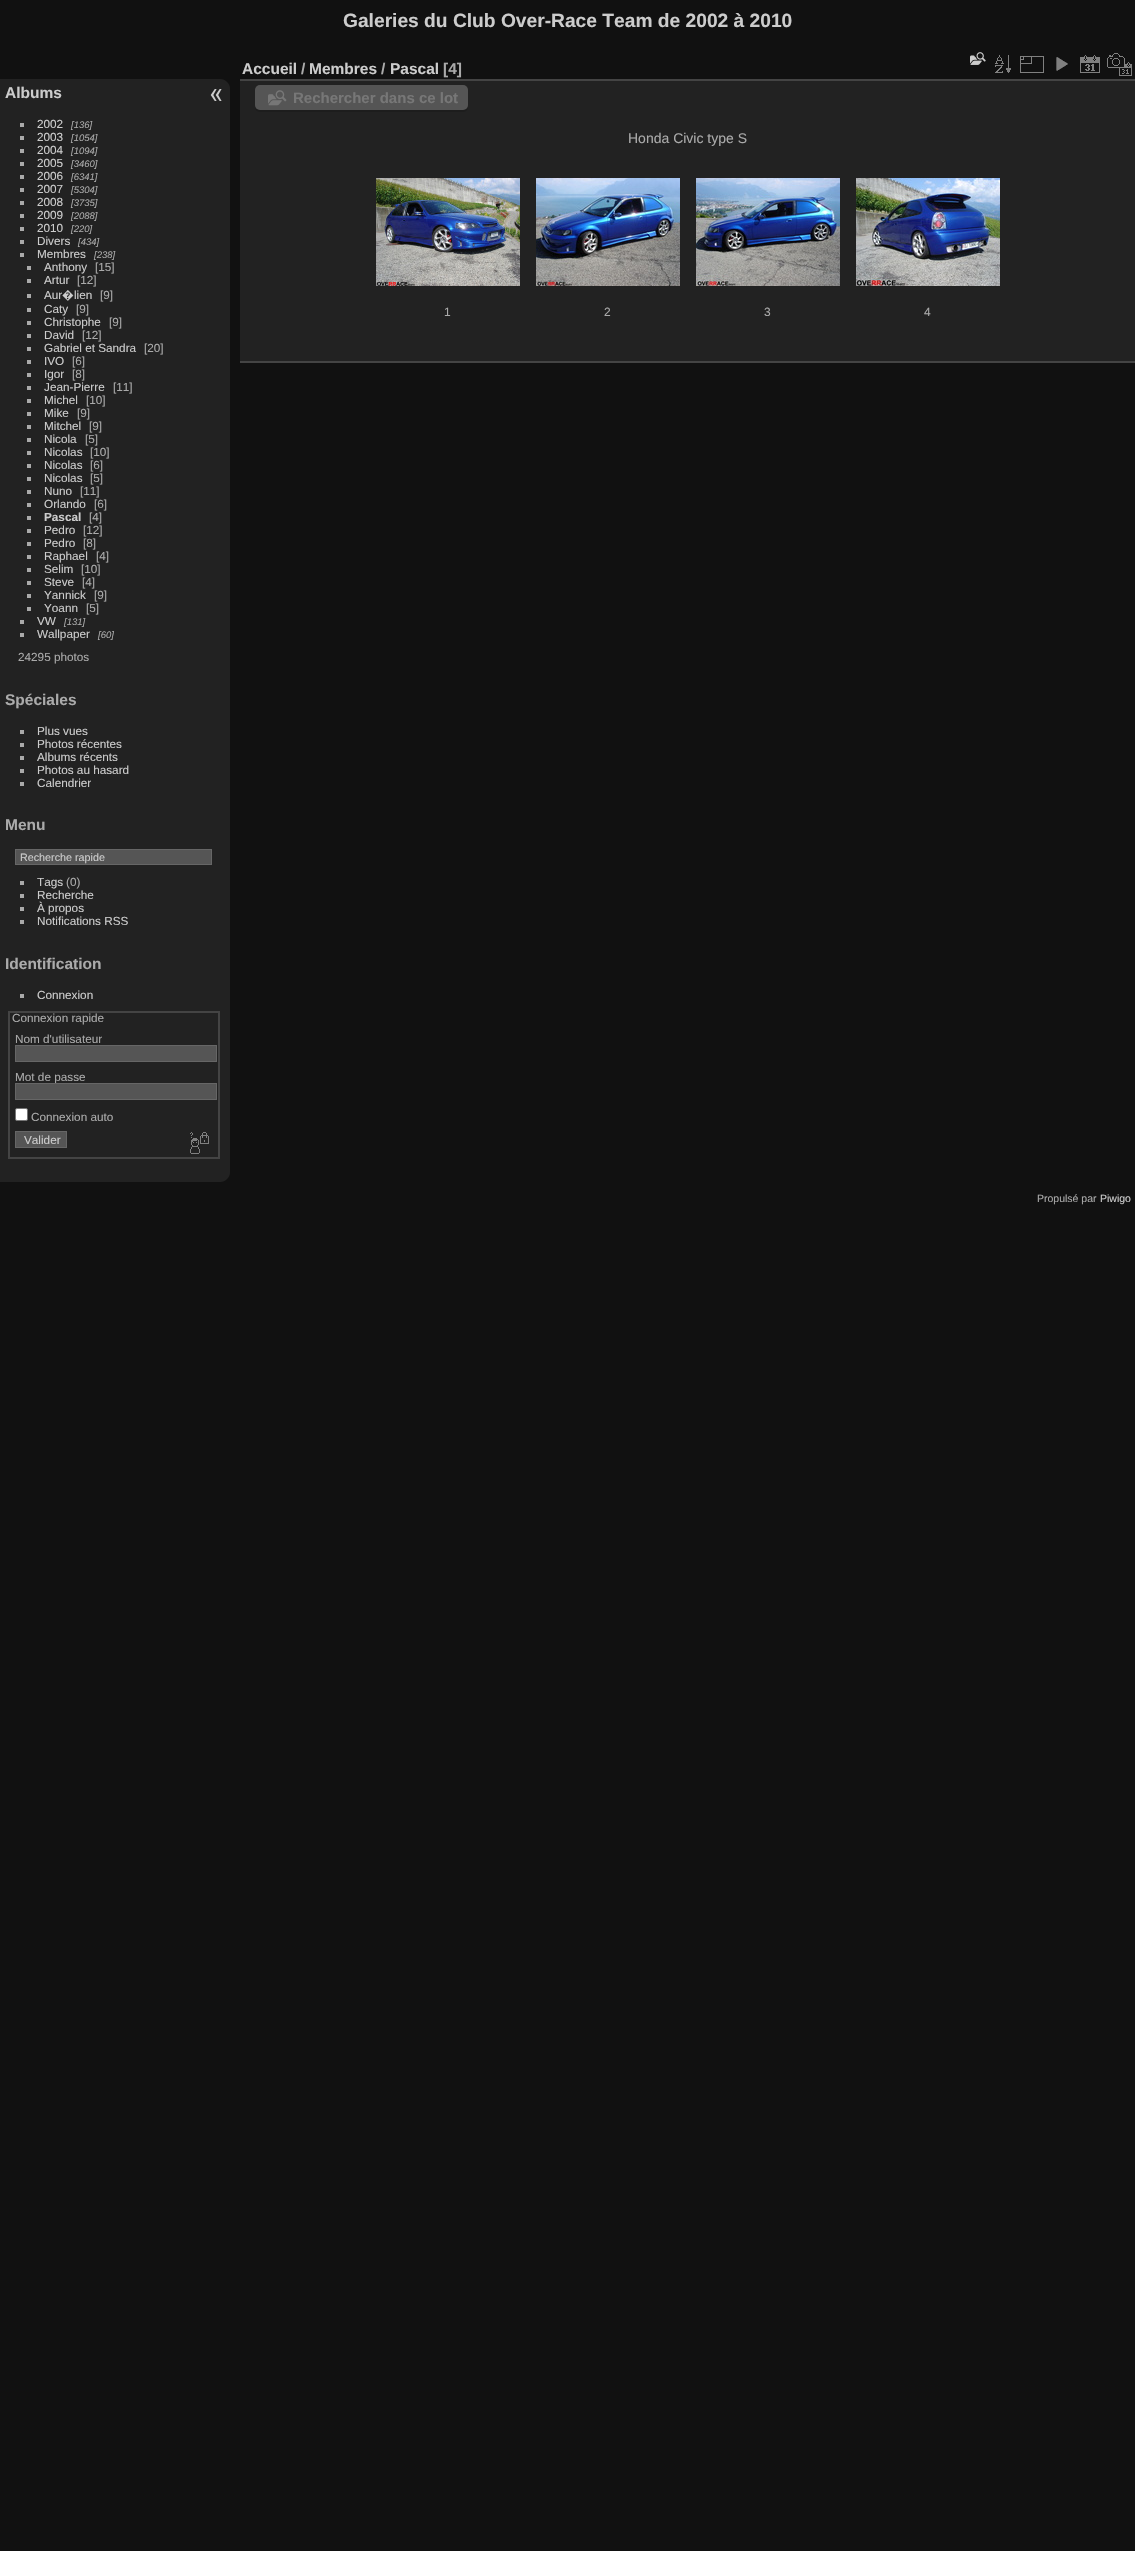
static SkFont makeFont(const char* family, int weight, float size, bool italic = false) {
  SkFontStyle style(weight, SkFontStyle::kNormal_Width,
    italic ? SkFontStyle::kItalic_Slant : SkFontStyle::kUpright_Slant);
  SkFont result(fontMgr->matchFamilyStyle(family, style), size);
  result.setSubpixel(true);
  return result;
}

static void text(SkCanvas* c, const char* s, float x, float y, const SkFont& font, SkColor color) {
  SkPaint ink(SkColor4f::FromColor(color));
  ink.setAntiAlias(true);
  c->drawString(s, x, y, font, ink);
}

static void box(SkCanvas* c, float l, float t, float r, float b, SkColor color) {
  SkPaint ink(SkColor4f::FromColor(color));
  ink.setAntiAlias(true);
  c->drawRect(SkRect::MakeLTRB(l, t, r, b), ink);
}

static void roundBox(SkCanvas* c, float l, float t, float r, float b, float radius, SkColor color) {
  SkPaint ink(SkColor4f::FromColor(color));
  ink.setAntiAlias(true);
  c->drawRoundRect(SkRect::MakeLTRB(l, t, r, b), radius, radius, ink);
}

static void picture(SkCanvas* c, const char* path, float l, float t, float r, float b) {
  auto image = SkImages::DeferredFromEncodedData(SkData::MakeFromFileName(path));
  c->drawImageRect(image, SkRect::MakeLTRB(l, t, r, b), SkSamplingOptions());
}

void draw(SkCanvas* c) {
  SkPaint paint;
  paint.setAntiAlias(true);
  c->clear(0xff111111);
  SkFont face1 = makeFont("Liberation Sans", 700, 19.2f);
  text(c, "Galeries du Club Over-Race Team de 2002 à 2010", 343, 27, face1, 0xffcccccc);
  paint.setColor(0xff222222);
  c->drawPath(SkPathBuilder().moveTo(0, 79).lineTo(220, 79).cubicTo(225.5f, 79, 230, 83.5f, 230, 89).lineTo(230, 1172).cubicTo(230, 1177.5f, 225.5f, 1182, 220, 1182).lineTo(0, 1182).close().detach(), paint);
  SkFont face2 = makeFont("Liberation Sans", 700, 15.5f);
  text(c, "Albums", 5, 98, face2, 0xffcccccc);
  box(c, 20, 123, 24, 127, 0xffaaaaaa);
  SkFont face3 = makeFont("Liberation Sans", 400, 11.75f);
  text(c, "2002", 37, 128, face3, 0xffcccccc);
  SkFont face4 = makeFont("Liberation Sans", 400, 9.5f, true);
  text(c, "[136]", 71, 128, face4, 0xffaaaaaa);
  box(c, 20, 136, 24, 140, 0xffaaaaaa);
  text(c, "2003", 37, 141, face3, 0xffcccccc);
  text(c, "[1054]", 71, 141, face4, 0xffaaaaaa);
  box(c, 20, 149, 24, 153, 0xffaaaaaa);
  text(c, "2004", 37, 154, face3, 0xffcccccc);
  text(c, "[1094]", 71, 154, face4, 0xffaaaaaa);
  box(c, 20, 162, 24, 166, 0xffaaaaaa);
  text(c, "2005", 37, 167, face3, 0xffcccccc);
  text(c, "[3460]", 71, 167, face4, 0xffaaaaaa);
  box(c, 20, 175, 24, 179, 0xffaaaaaa);
  text(c, "2006", 37, 180, face3, 0xffcccccc);
  text(c, "[6341]", 71, 180, face4, 0xffaaaaaa);
  box(c, 20, 188, 24, 192, 0xffaaaaaa);
  text(c, "2007", 37, 193, face3, 0xffcccccc);
  text(c, "[5304]", 71, 193, face4, 0xffaaaaaa);
  box(c, 20, 201, 24, 205, 0xffaaaaaa);
  text(c, "2008", 37, 206, face3, 0xffcccccc);
  text(c, "[3735]", 71, 206, face4, 0xffaaaaaa);
  box(c, 20, 214, 24, 218, 0xffaaaaaa);
  text(c, "2009", 37, 219, face3, 0xffcccccc);
  text(c, "[2088]", 71, 219, face4, 0xffaaaaaa);
  box(c, 20, 227, 24, 231, 0xffaaaaaa);
  text(c, "2010", 37, 232, face3, 0xffcccccc);
  text(c, "[220]", 71, 232, face4, 0xffaaaaaa);
  box(c, 20, 240, 24, 244, 0xffaaaaaa);
  text(c, "Divers", 37, 245, face3, 0xffcccccc);
  text(c, "[434]", 78, 245, face4, 0xffaaaaaa);
  box(c, 20, 253, 24, 257, 0xffaaaaaa);
  text(c, "Membres", 37, 258, face3, 0xffcccccc);
  text(c, "[238]", 94, 258, face4, 0xffaaaaaa);
  box(c, 27, 266, 31, 270, 0xffaaaaaa);
  text(c, "Anthony", 44, 271, face3, 0xffcccccc);
  text(c, "[15]", 95, 271, face3, 0xffaaaaaa);
  box(c, 27, 279, 31, 283, 0xffaaaaaa);
  text(c, "Artur", 44, 284, face3, 0xffcccccc);
  text(c, "[12]", 77, 284, face3, 0xffaaaaaa);
  box(c, 27, 294, 31, 298, 0xffaaaaaa);
  text(c, "Aur", 44, 299, face3, 0xffcccccc);
  SkFont face5 = makeFont("Noto Sans", 400, 11.75f);
  text(c, "�", 62, 299, face5, 0xffcccccc);
  text(c, "lien", 74, 299, face3, 0xffcccccc);
  text(c, "[9]", 100, 299, face3, 0xffaaaaaa);
  box(c, 27, 308, 31, 312, 0xffaaaaaa);
  text(c, "Caty", 44, 313, face3, 0xffcccccc);
  text(c, "[9]", 76, 313, face3, 0xffaaaaaa);
  box(c, 27, 321, 31, 325, 0xffaaaaaa);
  text(c, "Christophe", 44, 326, face3, 0xffcccccc);
  text(c, "[9]", 109, 326, face3, 0xffaaaaaa);
  box(c, 27, 334, 31, 338, 0xffaaaaaa);
  text(c, "David", 44, 339, face3, 0xffcccccc);
  text(c, "[12]", 82, 339, face3, 0xffaaaaaa);
  box(c, 27, 347, 31, 351, 0xffaaaaaa);
  text(c, "Gabriel et Sandra", 44, 352, face3, 0xffcccccc);
  text(c, "[20]", 144, 352, face3, 0xffaaaaaa);
  box(c, 27, 360, 31, 364, 0xffaaaaaa);
  text(c, "IVO", 44, 365, face3, 0xffcccccc);
  text(c, "[6]", 72, 365, face3, 0xffaaaaaa);
  box(c, 27, 373, 31, 377, 0xffaaaaaa);
  text(c, "Igor", 44, 378, face3, 0xffcccccc);
  text(c, "[8]", 72, 378, face3, 0xffaaaaaa);
  box(c, 27, 386, 31, 390, 0xffaaaaaa);
  text(c, "Jean-Pierre", 44, 391, face3, 0xffcccccc);
  text(c, "[11]", 113, 391, face3, 0xffaaaaaa);
  box(c, 27, 399, 31, 403, 0xffaaaaaa);
  text(c, "Michel", 44, 404, face3, 0xffcccccc);
  text(c, "[10]", 86, 404, face3, 0xffaaaaaa);
  box(c, 27, 412, 31, 416, 0xffaaaaaa);
  text(c, "Mike", 44, 417, face3, 0xffcccccc);
  text(c, "[9]", 77, 417, face3, 0xffaaaaaa);
  box(c, 27, 425, 31, 429, 0xffaaaaaa);
  text(c, "Mitchel", 44, 430, face3, 0xffcccccc);
  text(c, "[9]", 89, 430, face3, 0xffaaaaaa);
  box(c, 27, 438, 31, 442, 0xffaaaaaa);
  text(c, "Nicola", 44, 443, face3, 0xffcccccc);
  text(c, "[5]", 85, 443, face3, 0xffaaaaaa);
  box(c, 27, 451, 31, 455, 0xffaaaaaa);
  text(c, "Nicolas", 44, 456, face3, 0xffcccccc);
  text(c, "[10]", 90, 456, face3, 0xffaaaaaa);
  box(c, 27, 464, 31, 468, 0xffaaaaaa);
  text(c, "Nicolas", 44, 469, face3, 0xffcccccc);
  text(c, "[6]", 90, 469, face3, 0xffaaaaaa);
  box(c, 27, 477, 31, 481, 0xffaaaaaa);
  text(c, "Nicolas", 44, 482, face3, 0xffcccccc);
  text(c, "[5]", 90, 482, face3, 0xffaaaaaa);
  box(c, 27, 490, 31, 494, 0xffaaaaaa);
  text(c, "Nuno", 44, 495, face3, 0xffcccccc);
  text(c, "[11]", 80, 495, face3, 0xffaaaaaa);
  box(c, 27, 503, 31, 507, 0xffaaaaaa);
  text(c, "Orlando", 44, 508, face3, 0xffcccccc);
  text(c, "[6]", 94, 508, face3, 0xffaaaaaa);
  box(c, 27, 516, 31, 520, 0xffaaaaaa);
  SkFont face6 = makeFont("Liberation Sans", 700, 11.75f);
  text(c, "Pascal", 44, 521, face6, 0xffcccccc);
  text(c, "[4]", 89, 521, face3, 0xffaaaaaa);
  box(c, 27, 529, 31, 533, 0xffaaaaaa);
  text(c, "Pedro", 44, 534, face3, 0xffcccccc);
  text(c, "[12]", 83, 534, face3, 0xffaaaaaa);
  box(c, 27, 542, 31, 546, 0xffaaaaaa);
  text(c, "Pedro", 44, 547, face3, 0xffcccccc);
  text(c, "[8]", 83, 547, face3, 0xffaaaaaa);
  box(c, 27, 555, 31, 559, 0xffaaaaaa);
  text(c, "Raphael", 44, 560, face3, 0xffcccccc);
  text(c, "[4]", 96, 560, face3, 0xffaaaaaa);
  box(c, 27, 568, 31, 572, 0xffaaaaaa);
  text(c, "Selim", 44, 573, face3, 0xffcccccc);
  text(c, "[10]", 81, 573, face3, 0xffaaaaaa);
  box(c, 27, 581, 31, 585, 0xffaaaaaa);
  text(c, "Steve", 44, 586, face3, 0xffcccccc);
  text(c, "[4]", 82, 586, face3, 0xffaaaaaa);
  box(c, 27, 594, 31, 598, 0xffaaaaaa);
  text(c, "Yannick", 44, 599, face3, 0xffcccccc);
  text(c, "[9]", 94, 599, face3, 0xffaaaaaa);
  box(c, 27, 607, 31, 611, 0xffaaaaaa);
  text(c, "Yoann", 44, 612, face3, 0xffcccccc);
  text(c, "[5]", 86, 612, face3, 0xffaaaaaa);
  box(c, 20, 620, 24, 624, 0xffaaaaaa);
  text(c, "VW", 37, 625, face3, 0xffcccccc);
  text(c, "[131]", 64, 625, face4, 0xffaaaaaa);
  box(c, 20, 633, 24, 637, 0xffaaaaaa);
  text(c, "Wallpaper", 37, 638, face3, 0xffcccccc);
  text(c, "[60]", 98, 638, face4, 0xffaaaaaa);
  text(c, "24295 photos", 18, 661, face3, 0xffaaaaaa);
  text(c, "Spéciales", 5, 705, face2, 0xffaaaaaa);
  box(c, 20, 730, 24, 734, 0xffaaaaaa);
  text(c, "Plus vues", 37, 735, face3, 0xffcccccc);
  box(c, 20, 743, 24, 747, 0xffaaaaaa);
  text(c, "Photos récentes", 37, 748, face3, 0xffcccccc);
  box(c, 20, 756, 24, 760, 0xffaaaaaa);
  text(c, "Albums récents", 37, 761, face3, 0xffcccccc);
  box(c, 20, 769, 24, 773, 0xffaaaaaa);
  text(c, "Photos au hasard", 37, 774, face3, 0xffcccccc);
  box(c, 20, 782, 24, 786, 0xffaaaaaa);
  text(c, "Calendrier", 37, 787, face3, 0xffcccccc);
  text(c, "Menu", 5, 830, face2, 0xffaaaaaa);
  paint.setColor(0xff555555);
  c->drawRect(SkRect::MakeLTRB(15.5f, 849.5f, 211.5f, 864.5f), paint);
  paint.setStyle(SkPaint::kStroke_Style);
  paint.setStrokeWidth(1);
  paint.setColor(0xff666666);
  c->drawRect(SkRect::MakeLTRB(15.5f, 849.5f, 211.5f, 864.5f), paint);
  SkFont face7 = makeFont("Liberation Sans", 400, 10.75f);
  text(c, "Recherche rapide", 20, 861, face7, 0xffcccccc);
  box(c, 20, 881, 24, 885, 0xffaaaaaa);
  text(c, "Tags", 37, 886, face3, 0xffcccccc);
  text(c, "(0)", 66, 886, face3, 0xffaaaaaa);
  box(c, 20, 894, 24, 898, 0xffaaaaaa);
  text(c, "Recherche", 37, 899, face3, 0xffcccccc);
  box(c, 20, 907, 24, 911, 0xffaaaaaa);
  text(c, "À propos", 37, 912, face3, 0xffcccccc);
  box(c, 20, 920, 24, 924, 0xffaaaaaa);
  text(c, "Notifications RSS", 37, 925, face3, 0xffcccccc);
  text(c, "Identification", 5, 969, face2, 0xffaaaaaa);
  box(c, 20, 994, 24, 998, 0xffaaaaaa);
  text(c, "Connexion", 37, 999, face3, 0xffcccccc);
  paint.setStrokeWidth(2);
  paint.setColor(0xff444444);
  c->drawRect(SkRect::MakeLTRB(9, 1012, 219, 1158), paint);
  text(c, "Connexion rapide", 12, 1022, face3, 0xffaaaaaa);
  text(c, "Nom d'utilisateur", 15, 1043, face3, 0xffaaaaaa);
  paint.setStyle(SkPaint::kFill_Style);
  paint.setColor(0xff555555);
  c->drawRect(SkRect::MakeLTRB(15.5f, 1045.5f, 216.5f, 1061.5f), paint);
  paint.setStyle(SkPaint::kStroke_Style);
  paint.setStrokeWidth(1);
  paint.setColor(0xff666666);
  c->drawRect(SkRect::MakeLTRB(15.5f, 1045.5f, 216.5f, 1061.5f), paint);
  text(c, "Mot de passe", 15, 1081, face3, 0xffaaaaaa);
  paint.setStyle(SkPaint::kFill_Style);
  paint.setColor(0xff555555);
  c->drawRect(SkRect::MakeLTRB(15.5f, 1083.5f, 216.5f, 1099.5f), paint);
  paint.setStyle(SkPaint::kStroke_Style);
  paint.setColor(0xff666666);
  c->drawRect(SkRect::MakeLTRB(15.5f, 1083.5f, 216.5f, 1099.5f), paint);
  paint.setStyle(SkPaint::kFill_Style);
  paint.setColor(0xffffffff);
  c->drawRoundRect(SkRect::MakeLTRB(15.5f, 1108.5f, 27.5f, 1120.5f), 1.5f, 1.5f, paint);
  paint.setStyle(SkPaint::kStroke_Style);
  paint.setColor(0xff767676);
  c->drawRoundRect(SkRect::MakeLTRB(15.5f, 1108.5f, 27.5f, 1120.5f), 1.5f, 1.5f, paint);
  text(c, "Connexion auto", 31, 1121, face3, 0xffaaaaaa);
  paint.setStyle(SkPaint::kFill_Style);
  paint.setColor(0xff555555);
  c->drawRect(SkRect::MakeLTRB(15.5f, 1131.5f, 66.5f, 1147.5f), paint);
  paint.setStyle(SkPaint::kStroke_Style);
  paint.setColor(0xff666666);
  c->drawRect(SkRect::MakeLTRB(15.5f, 1131.5f, 66.5f, 1147.5f), paint);
  text(c, "Valider", 24, 1144, face3, 0xffcccccc);
  picture(c, "img_01.png", 190, 1132, 209, 1154);
  picture(c, "img_02.png", 210, 89, 222, 101);
  box(c, 240, 81, 1135, 361, 0xff222222);
  box(c, 240, 361, 1135, 363, 0xff444444);
  box(c, 240, 79, 1135, 81, 0xff444444);
  text(c, "Accueil", 242, 74, face2, 0xffcccccc);
  text(c, "/", 301, 74, face2, 0xffaaaaaa);
  text(c, "Membres", 309, 74, face2, 0xffcccccc);
  text(c, "/", 381, 74, face2, 0xffaaaaaa);
  text(c, "Pascal", 390, 74, face2, 0xffcccccc);
  text(c, "[4]", 443, 74, face2, 0xffaaaaaa);
  picture(c, "img_03.png", 970, 52, 986, 65);
  picture(c, "img_04.png", 995, 55, 1011, 73);
  picture(c, "img_05.png", 1020, 56, 1044, 73);
  picture(c, "img_06.png", 1056, 57, 1068, 71);
  picture(c, "img_07.png", 1080, 55, 1100, 73);
  picture(c, "img_08.png", 1107, 53, 1132, 76);
  paint.setStyle(SkPaint::kFill_Style);
  paint.setColor(0xff1d1d1d);
  c->drawPath(SkPathBuilder().moveTo(255, 105).lineTo(255, 107).cubicTo(255, 110, 257, 112, 260, 112).lineTo(463, 112).cubicTo(466, 112, 468, 110, 468, 107).lineTo(468, 105).cubicTo(468, 108, 466, 110, 463, 110).lineTo(260, 110).cubicTo(257, 110, 255, 108, 255, 105).close().detach(), paint);
  roundBox(c, 255, 85, 468, 110, 5, 0xff555555);
  picture(c, "img_09.png", 268, 90, 287, 106);
  SkFont face8 = makeFont("Liberation Sans", 700, 15);
  text(c, "Rechercher dans ce lot", 293, 103, face8, 0xff777777);
  SkFont face9 = makeFont("Liberation Sans", 400, 14);
  text(c, "Honda Civic type S", 628, 143, face9, 0xffaaaaaa);
  picture(c, "img_10.png", 376, 178, 520, 286);
  SkFont face10 = makeFont("Liberation Sans", 400, 12);
  text(c, "1", 444, 316, face10, 0xffaaaaaa);
  picture(c, "img_11.png", 536, 178, 680, 286);
  text(c, "2", 604, 316, face10, 0xffaaaaaa);
  picture(c, "img_12.png", 696, 178, 840, 286);
  text(c, "3", 764, 316, face10, 0xffaaaaaa);
  picture(c, "img_13.png", 856, 178, 1000, 286);
  text(c, "4", 924, 316, face10, 0xffaaaaaa);
  SkFont face11 = makeFont("Liberation Sans", 400, 10.5f);
  text(c, "Propulsé par", 1037, 1202, face11, 0xffaaaaaa);
  text(c, "Piwigo", 1100, 1202, face11, 0xffcccccc);
}
